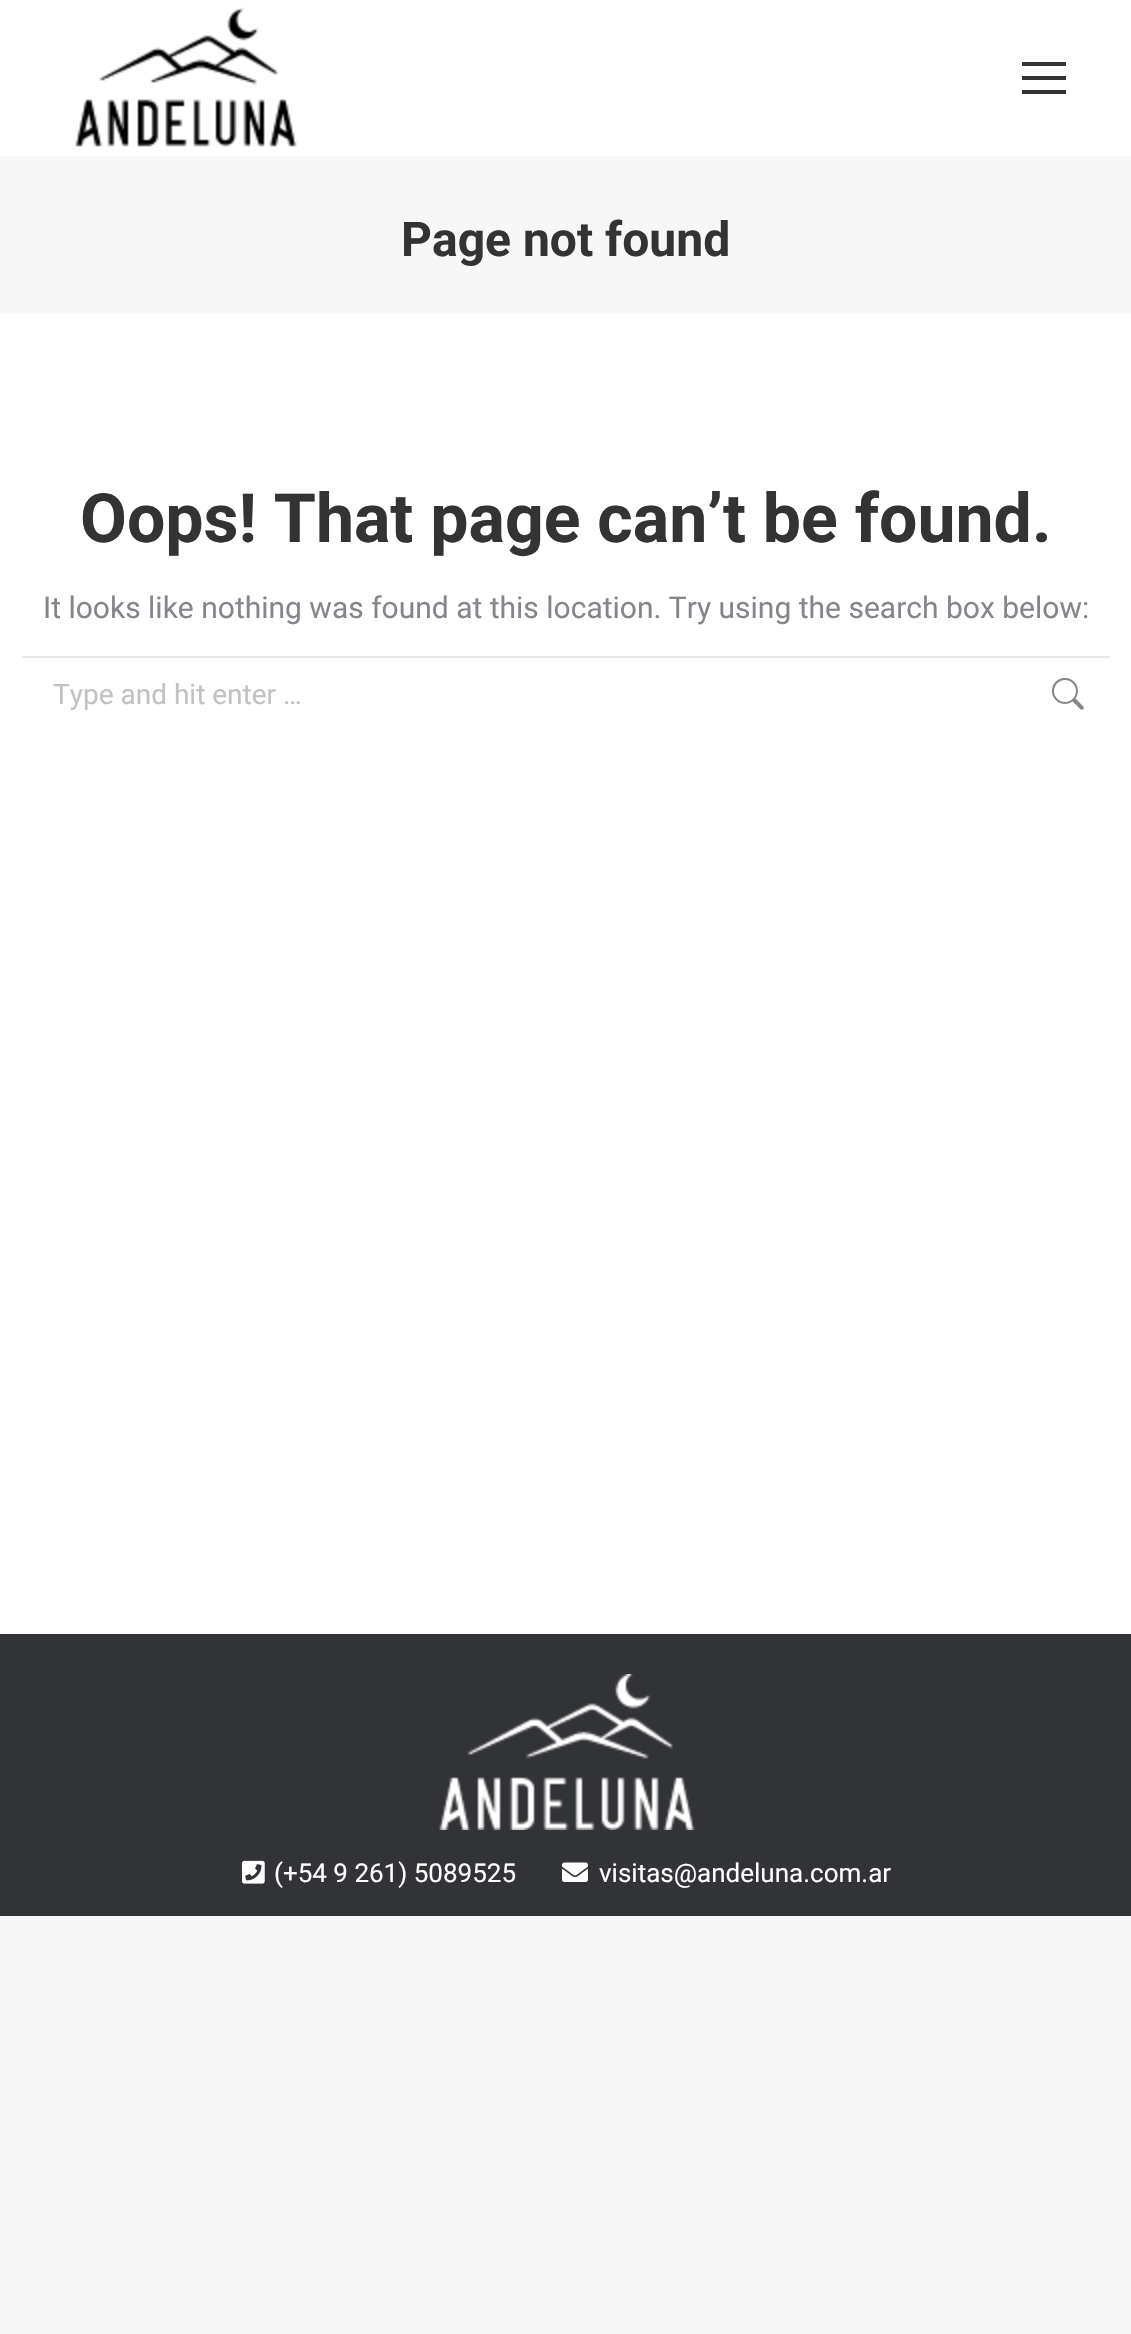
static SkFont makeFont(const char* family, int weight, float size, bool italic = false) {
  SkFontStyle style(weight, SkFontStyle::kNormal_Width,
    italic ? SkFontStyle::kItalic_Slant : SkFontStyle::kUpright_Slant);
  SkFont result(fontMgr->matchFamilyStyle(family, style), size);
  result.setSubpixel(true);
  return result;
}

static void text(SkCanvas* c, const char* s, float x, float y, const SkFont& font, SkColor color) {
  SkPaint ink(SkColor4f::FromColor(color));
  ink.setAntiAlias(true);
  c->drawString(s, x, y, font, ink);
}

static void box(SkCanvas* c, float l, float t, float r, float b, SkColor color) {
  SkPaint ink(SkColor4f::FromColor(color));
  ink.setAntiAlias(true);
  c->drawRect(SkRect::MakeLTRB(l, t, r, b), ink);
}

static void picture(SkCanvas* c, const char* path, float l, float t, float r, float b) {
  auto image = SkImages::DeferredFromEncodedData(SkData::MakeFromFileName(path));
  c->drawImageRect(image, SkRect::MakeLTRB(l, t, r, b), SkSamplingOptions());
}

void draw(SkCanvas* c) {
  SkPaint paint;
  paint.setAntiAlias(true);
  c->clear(0xfff7f7f7);
  box(c, 0, 0, 1131, 1634, 0xffffffff);
  picture(c, "img_01.png", 75, 7, 297, 147);
  box(c, 1022, 62, 1066, 66, 0xff333333);
  box(c, 1022, 76, 1066, 80, 0xff333333);
  box(c, 1022, 90, 1066, 94, 0xff333333);
  box(c, 0, 156, 1131, 314, 0xfff7f7f7);
  SkFont face1 = makeFont("Roboto", 700, 48);
  text(c, "Page not found", 401, 256, face1, 0xff333333);
  SkFont face2 = makeFont("Roboto", 700, 68);
  text(c, "Oops! That page can’t be found.", 80, 542, face2, 0xff333333);
  SkFont face3 = makeFont("Roboto", 400, 30);
  text(c, "It looks like nothing was found at this location. Try using the search box below:", 43, 618, face3, 0xff85868c);
  box(c, 22, 656, 1110, 658, 0xffe8e8e8);
  SkFont face4 = makeFont("Roboto", 400, 28);
  text(c, "Type and hit enter …", 53, 704, face4, 0xffc1c2c5);
  picture(c, "img_02.png", 1052, 678, 1084, 710);
  box(c, 0, 1634, 1131, 1916, 0xff313336);
  picture(c, "img_03.png", 439, 1674, 695, 1830);
  picture(c, "img_04.png", 242, 1860, 265, 1884);
  SkFont face5 = makeFont("Roboto", 400, 26);
  text(c, "(+54 9 261) 5089525", 274, 1882, face5, 0xffffffff);
  picture(c, "img_05.png", 562, 1862, 588, 1882);
  text(c, "visitas@andeluna.com.ar", 599, 1882, face5, 0xffffffff);
}
